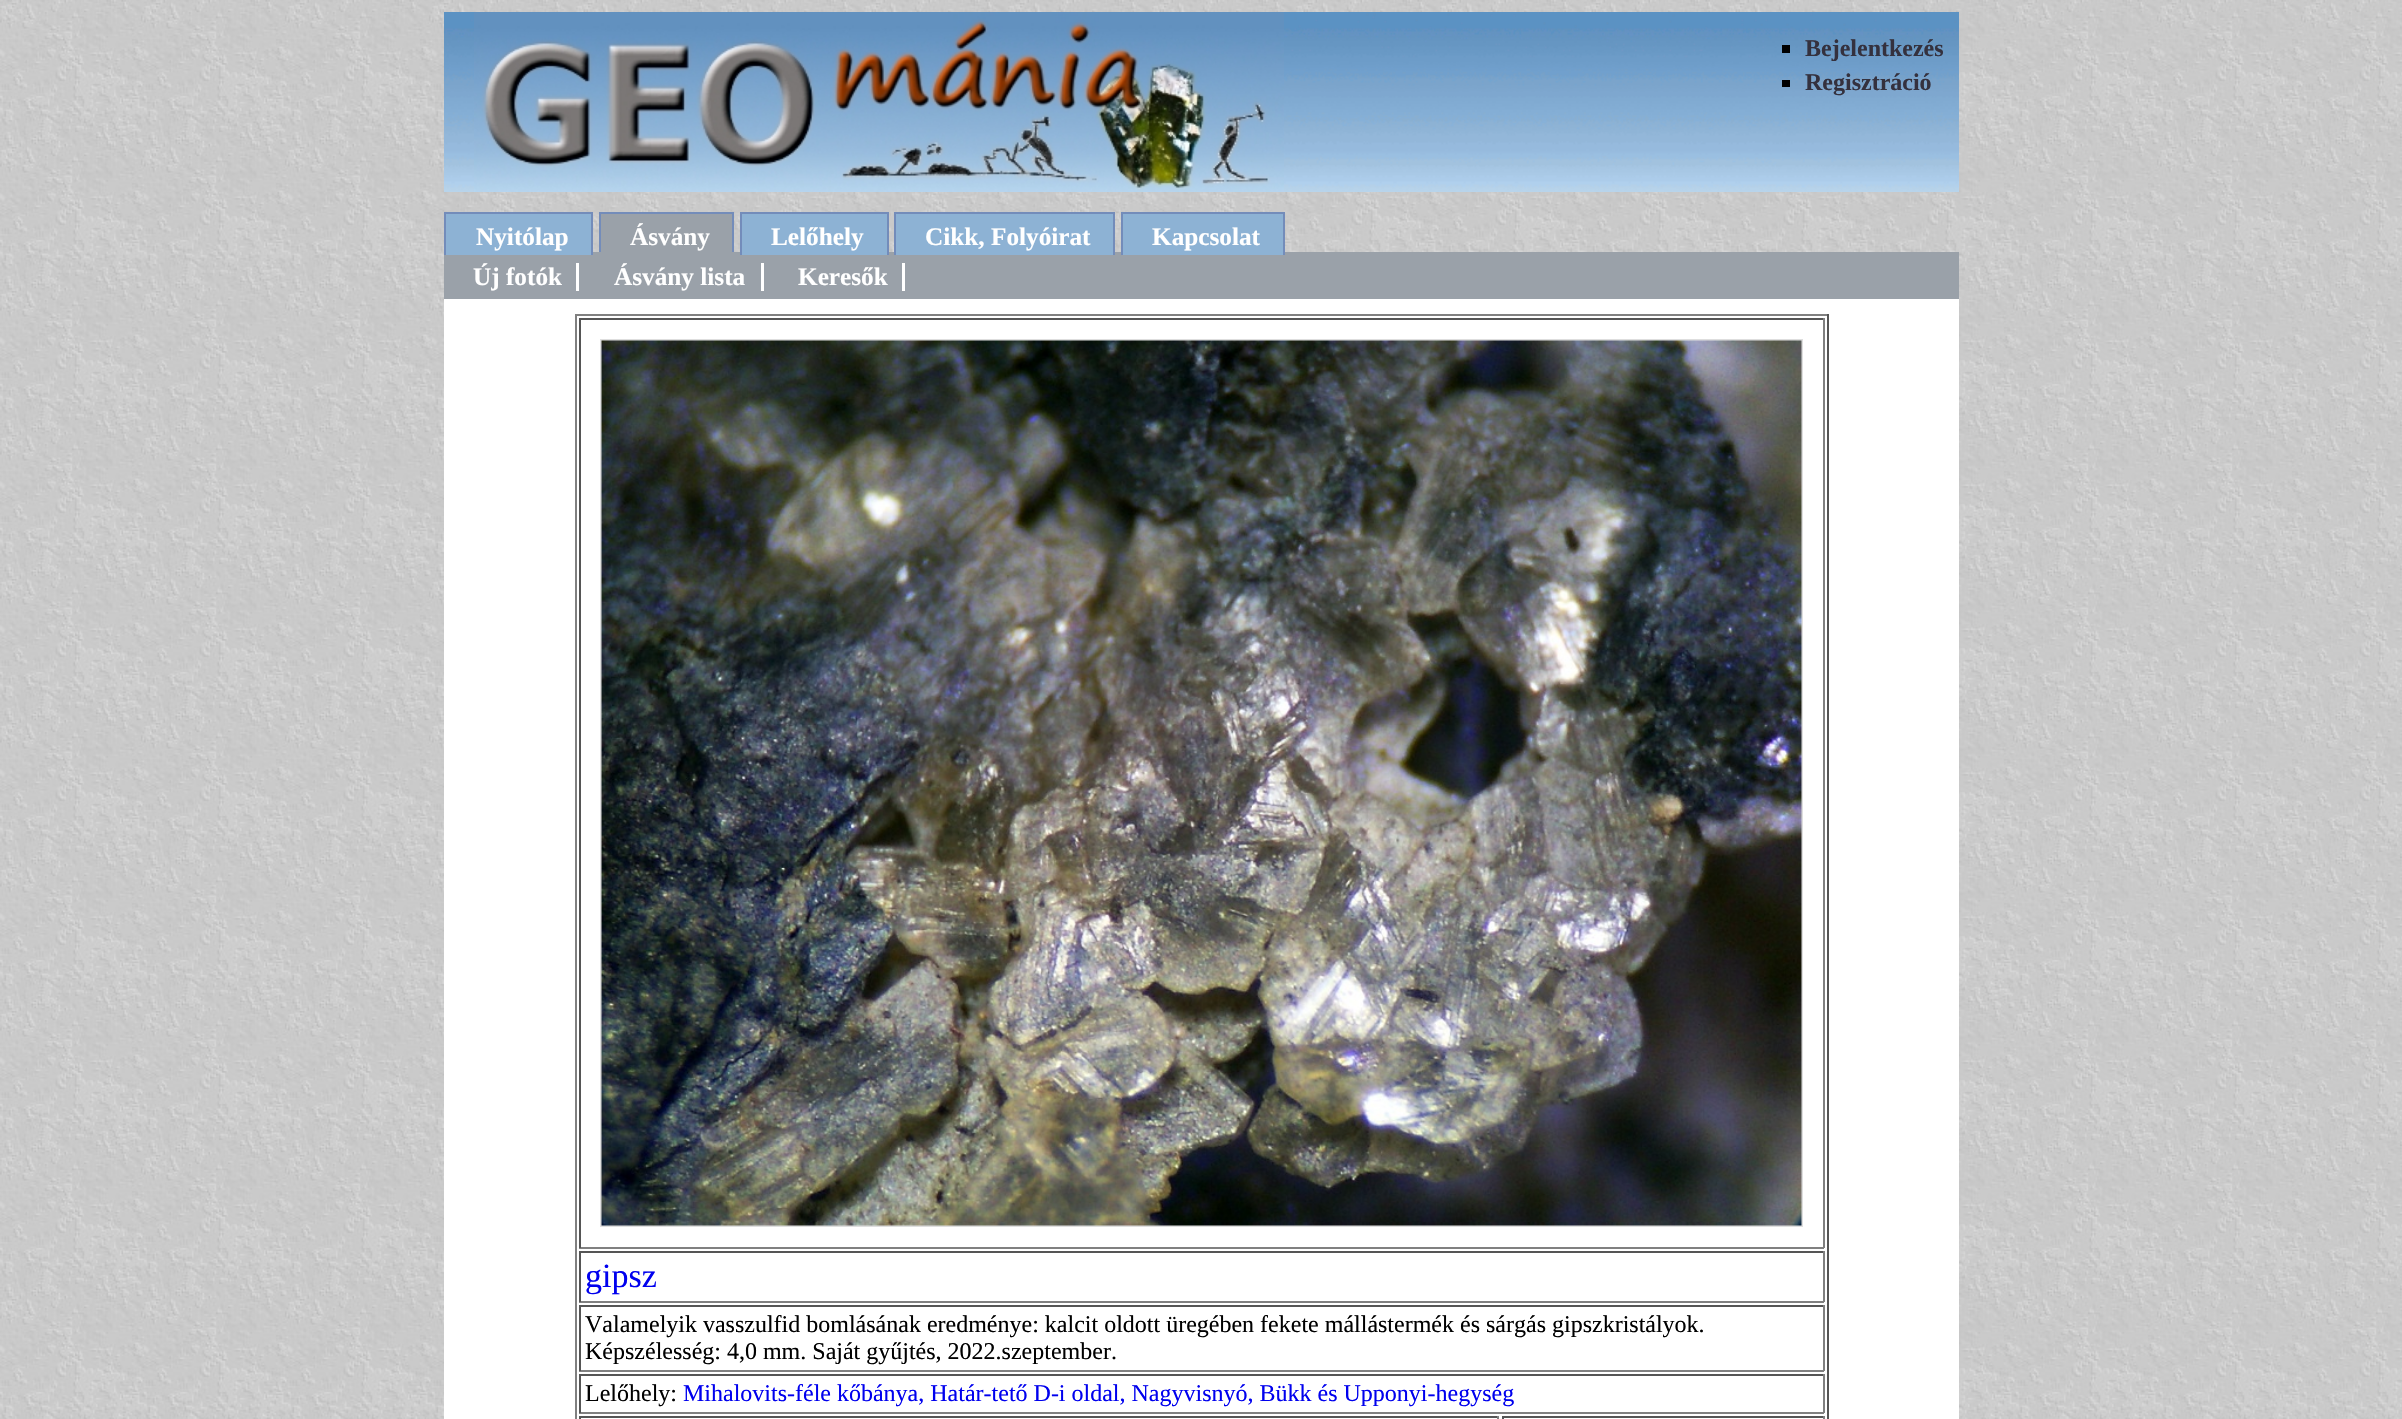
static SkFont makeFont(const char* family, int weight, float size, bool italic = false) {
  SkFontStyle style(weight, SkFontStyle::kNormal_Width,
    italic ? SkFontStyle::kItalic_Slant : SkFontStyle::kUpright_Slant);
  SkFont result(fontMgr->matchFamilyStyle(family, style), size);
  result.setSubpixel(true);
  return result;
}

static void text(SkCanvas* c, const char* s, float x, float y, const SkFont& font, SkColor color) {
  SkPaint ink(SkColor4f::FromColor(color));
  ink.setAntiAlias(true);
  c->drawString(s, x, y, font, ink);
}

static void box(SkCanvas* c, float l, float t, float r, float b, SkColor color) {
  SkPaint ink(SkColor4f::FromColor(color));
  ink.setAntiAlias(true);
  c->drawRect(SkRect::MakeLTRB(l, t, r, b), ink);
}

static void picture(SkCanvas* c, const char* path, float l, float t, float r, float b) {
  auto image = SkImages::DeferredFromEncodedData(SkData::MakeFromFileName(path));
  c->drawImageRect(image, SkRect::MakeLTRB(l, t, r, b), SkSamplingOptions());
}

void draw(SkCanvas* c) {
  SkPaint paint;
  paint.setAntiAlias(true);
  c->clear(0xffffffff);
  picture(c, "img_01.png", 0, 0, 2402, 1419);
  picture(c, "img_02.png", 444, 12, 1959, 192);
  picture(c, "img_03.png", 474, 12, 1284, 192);
  box(c, 1782, 45, 1790, 53, 0xff000000);
  SkFont face1 = makeFont("Liberation Serif", 700, 24);
  text(c, "Bejelentkezés", 1805, 56, face1, 0xff34313e);
  box(c, 1782, 80, 1790, 87, 0xff000000);
  text(c, "Regisztráció", 1805, 90, face1, 0xff34313e);
  box(c, 444, 252, 1959, 299, 0xff9aa1a9);
  box(c, 446, 214, 591, 255, 0xff8db2d4);
  SkFont face2 = makeFont("Liberation Serif", 700, 25.25f);
  text(c, "Nyitólap", 476, 245, face2, 0xffffffff);
  box(c, 444, 212, 593, 214, 0xff738cba);
  box(c, 591, 212, 593, 255, 0xff738cba);
  box(c, 444, 212, 446, 255, 0xff738cba);
  box(c, 601, 214, 732, 252, 0xff9aa1a9);
  text(c, "Ásvány", 630, 245, face2, 0xffffffff);
  box(c, 599, 212, 734, 214, 0xff738cba);
  box(c, 732, 212, 734, 252, 0xff738cba);
  box(c, 599, 212, 601, 252, 0xff738cba);
  box(c, 742, 214, 887, 255, 0xff8db2d4);
  text(c, "Lelőhely", 771, 245, face2, 0xffffffff);
  box(c, 740, 212, 888, 214, 0xff738cba);
  box(c, 887, 212, 889, 255, 0xff738cba);
  box(c, 740, 212, 742, 255, 0xff738cba);
  box(c, 896, 214, 1113, 255, 0xff8db2d4);
  text(c, "Cikk, Folyóirat", 925, 245, face2, 0xffffffff);
  box(c, 894, 212, 1115, 214, 0xff738cba);
  box(c, 1113, 212, 1115, 255, 0xff738cba);
  box(c, 894, 212, 896, 255, 0xff738cba);
  box(c, 1123, 214, 1283, 255, 0xff8db2d4);
  text(c, "Kapcsolat", 1152, 245, face2, 0xffffffff);
  box(c, 1121, 212, 1284, 214, 0xff738cba);
  box(c, 1283, 212, 1285, 255, 0xff738cba);
  box(c, 1121, 212, 1123, 255, 0xff738cba);
  box(c, 444, 299, 1959, 1419, 0xffffffff);
  text(c, "Új fotók", 473, 285, face2, 0xffffffff);
  box(c, 576, 263, 579, 291, 0xffffffff);
  text(c, "Ásvány lista", 614, 285, face2, 0xffffffff);
  box(c, 761, 263, 764, 291, 0xffffffff);
  text(c, "Keresők", 798, 285, face2, 0xffffffff);
  box(c, 902, 263, 905, 291, 0xffffffff);
  box(c, 575, 314, 1829, 316, 0xff808080);
  box(c, 1827, 314, 1829, 1419, 0xff555555);
  box(c, 575, 314, 577, 1419, 0xff808080);
  box(c, 579, 318, 1824, 320, 0xff555555);
  box(c, 1823, 318, 1825, 1248, 0xff808080);
  box(c, 579, 1247, 1824, 1249, 0xff808080);
  box(c, 579, 318, 581, 1248, 0xff555555);
  paint.setStyle(SkPaint::kStroke_Style);
  paint.setStrokeWidth(2);
  paint.setColor(0xffdedede);
  c->drawRect(SkRect::MakeLTRB(601, 340, 1802, 1226), paint);
  picture(c, "img_04.png", 601, 340, 1802, 1226);
  box(c, 579, 1251, 1824, 1253, 0xff555555);
  box(c, 1823, 1251, 1825, 1302, 0xff808080);
  box(c, 579, 1301, 1824, 1303, 0xff808080);
  box(c, 579, 1251, 581, 1302, 0xff555555);
  SkFont face3 = makeFont("Liberation Serif", 400, 34);
  text(c, "gipsz", 585, 1287, face3, 0xff0000ee);
  box(c, 579, 1305, 1824, 1307, 0xff555555);
  box(c, 1823, 1305, 1825, 1371, 0xff808080);
  box(c, 579, 1370, 1824, 1372, 0xff808080);
  box(c, 579, 1305, 581, 1371, 0xff555555);
  SkFont face4 = makeFont("Liberation Serif", 400, 24);
  text(c, "Valamelyik vasszulfid bomlásának eredménye: kalcit oldott üregében fekete mállástermék és sárgás gipszkristályok.", 585, 1332, face4, 0xff000000);
  text(c, "Képszélesség: 4,0 mm. Saját gyűjtés, 2022.szeptember.", 585, 1359, face4, 0xff000000);
  box(c, 579, 1374, 1824, 1376, 0xff555555);
  box(c, 1823, 1374, 1825, 1413, 0xff808080);
  box(c, 579, 1412, 1824, 1414, 0xff808080);
  box(c, 579, 1374, 581, 1413, 0xff555555);
  text(c, "Lelőhely:", 585, 1401, face4, 0xff000000);
  text(c, "Mihalovits-féle kőbánya, Határ-tető D-i oldal, Nagyvisnyó, Bükk és Upponyi-hegység", 683, 1401, face4, 0xff0000ee);
  box(c, 579, 1416, 1499, 1418, 0xff555555);
  box(c, 1497, 1416, 1499, 1419, 0xff808080);
  box(c, 579, 1416, 581, 1419, 0xff555555);
  box(c, 1502, 1416, 1824, 1418, 0xff555555);
  box(c, 1823, 1416, 1825, 1419, 0xff808080);
  box(c, 1502, 1416, 1504, 1419, 0xff555555);
}
